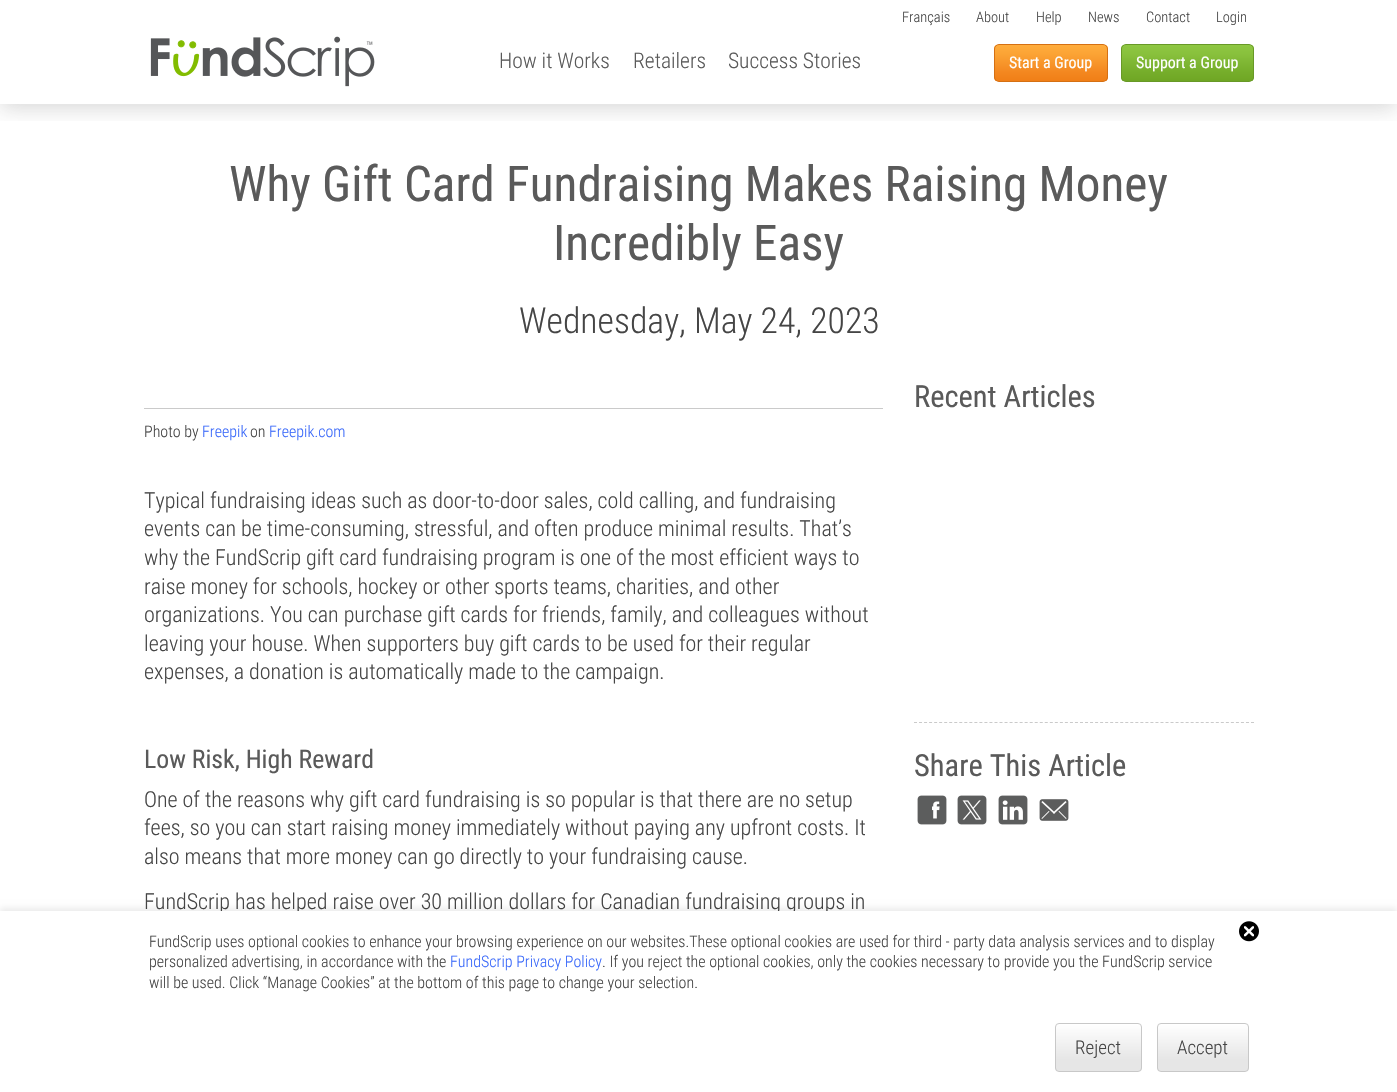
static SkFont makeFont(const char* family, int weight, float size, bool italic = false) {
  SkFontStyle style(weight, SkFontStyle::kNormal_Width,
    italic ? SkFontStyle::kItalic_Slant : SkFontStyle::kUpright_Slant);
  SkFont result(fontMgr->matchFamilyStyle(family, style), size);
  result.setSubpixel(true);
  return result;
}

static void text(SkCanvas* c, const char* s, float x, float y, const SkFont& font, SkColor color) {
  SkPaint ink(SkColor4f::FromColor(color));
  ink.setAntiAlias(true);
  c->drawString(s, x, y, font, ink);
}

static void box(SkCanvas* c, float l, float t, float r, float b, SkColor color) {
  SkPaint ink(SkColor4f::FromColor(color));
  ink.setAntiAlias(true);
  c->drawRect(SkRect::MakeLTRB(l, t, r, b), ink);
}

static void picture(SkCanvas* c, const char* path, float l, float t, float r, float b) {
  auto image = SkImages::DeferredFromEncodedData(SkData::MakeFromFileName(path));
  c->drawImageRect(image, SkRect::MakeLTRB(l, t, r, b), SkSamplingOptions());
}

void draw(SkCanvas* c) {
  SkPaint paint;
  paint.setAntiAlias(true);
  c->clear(0xffffffff);
  c->save();
  c->clipRect(SkRect::MakeLTRB(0, 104, 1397, 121));
  paint.setColor(0x33323232);
  paint.setMaskFilter(SkMaskFilter::MakeBlur(kNormal_SkBlurStyle, 10.5f));
  c->drawRect(SkRect::MakeLTRB(0, 4, 1397, 108), paint);
  paint.setMaskFilter(nullptr);
  c->restore();
  picture(c, "img_01.png", 150, 36, 375, 87);
  SkFont face1 = makeFont("Roboto Condensed", 300, 14.5f);
  text(c, "Français", 902, 22, face1, 0xff454545);
  text(c, "About", 976, 22, face1, 0xff454545);
  text(c, "Help", 1036, 22, face1, 0xff454545);
  text(c, "News", 1088, 22, face1, 0xff454545);
  text(c, "Contact", 1146, 22, face1, 0xff454545);
  text(c, "Login", 1216, 22, face1, 0xff454545);
  SkFont face2 = makeFont("Roboto Condensed", 300, 21.5f);
  text(c, "How it Works", 499, 68, face2, 0xff5a5a5a);
  text(c, "Retailers", 633, 68, face2, 0xff5a5a5a);
  text(c, "Success Stories", 728, 68, face2, 0xff5a5a5a);
  c->save();
  c->clipPath(SkPathBuilder().moveTo(999, 44).lineTo(1103, 44).cubicTo(1106, 44, 1108, 46, 1108, 49).lineTo(1108, 77).cubicTo(1108, 80, 1106, 82, 1103, 82).lineTo(999, 82).cubicTo(996, 82, 994, 80, 994, 77).lineTo(994, 49).cubicTo(994, 46, 996, 44, 999, 44).close().detach(), true);
  {
    const SkColor colors[] = {0xffffac3c, 0xfffba234, 0xfff48921, 0xfff07e17};
    const float stops[] = {0, 0.28f, 0.72f, 1};
    const SkPoint ends[] = {{1051, 45}, {1051, 81}};
    paint.setShader(SkGradientShader::MakeLinear(ends, colors, stops, 4, SkTileMode::kClamp));
    paint.setAlpha(255);
  }
  c->drawRect(SkRect::MakeLTRB(994, 45, 1108, 81), paint);
  c->restore();
  paint.setStyle(SkPaint::kStroke_Style);
  paint.setStrokeWidth(1);
  paint.setShader(nullptr);
  paint.setColor(0xffd57013);
  c->drawRoundRect(SkRect::MakeLTRB(994.5f, 44.5f, 1107.5f, 81.5f), 4.5f, 4.5f, paint);
  SkFont face3 = makeFont("Roboto Condensed", 400, 16);
  text(c, "Start a Group", 1009, 68, face3, 0xffffffff);
  c->save();
  c->clipPath(SkPathBuilder().moveTo(1126, 44).lineTo(1249, 44).cubicTo(1252, 44, 1254, 46, 1254, 49).lineTo(1254, 77).cubicTo(1254, 80, 1252, 82, 1249, 82).lineTo(1126, 82).cubicTo(1123, 82, 1121, 80, 1121, 77).lineTo(1121, 49).cubicTo(1121, 46, 1123, 44, 1126, 44).close().detach(), true);
  paint.setStyle(SkPaint::kFill_Style);
  {
    const SkColor colors[] = {0xff8ec742, 0xff89c13d, 0xff77af2c, 0xff6fa624};
    const float stops[] = {0, 0.23f, 0.7f, 1};
    const SkPoint ends[] = {{1188, 45}, {1188, 81}};
    paint.setShader(SkGradientShader::MakeLinear(ends, colors, stops, 4, SkTileMode::kClamp));
    paint.setAlpha(255);
  }
  c->drawRect(SkRect::MakeLTRB(1121, 45, 1254, 81), paint);
  c->restore();
  paint.setStyle(SkPaint::kStroke_Style);
  paint.setShader(nullptr);
  paint.setColor(0xff689927);
  c->drawRoundRect(SkRect::MakeLTRB(1121.5f, 44.5f, 1253.5f, 81.5f), 4.5f, 4.5f, paint);
  text(c, "Support a Group", 1136, 68, face3, 0xffffffff);
  SkFont face4 = makeFont("Roboto Condensed", 400, 49.25f);
  text(c, "Why Gift Card Fundraising Makes Raising Money", 229, 201, face4, 0xff5a5a5a);
  text(c, "Incredibly Easy", 553, 260, face4, 0xff5a5a5a);
  SkFont face5 = makeFont("Roboto Condensed", 300, 35.75f);
  text(c, "Wednesday, May 24, 2023", 519, 333, face5, 0xff454545);
  box(c, 144, 408, 883, 409, 0xffcacaca);
  SkFont face6 = makeFont("Roboto Condensed", 300, 16);
  text(c, "Photo by", 144, 437, face6, 0xff454545);
  text(c, "Freepik", 202, 437, face6, 0xff3968fa);
  text(c, "on", 250, 437, face6, 0xff454545);
  text(c, "Freepik.com", 269, 437, face6, 0xff3968fa);
  SkFont face7 = makeFont("Roboto Condensed", 300, 22);
  text(c, "Typical fundraising ideas such as door-to-door sales, cold calling, and fundraising", 144, 508, face7, 0xff454545);
  text(c, "events can be time-consuming, stressful, and often produce minimal results. That’s", 144, 536, face7, 0xff454545);
  text(c, "why the FundScrip gift card fundraising program is one of the most efficient ways to", 144, 565, face7, 0xff454545);
  text(c, "raise money for schools, hockey or other sports teams, charities, and other", 144, 594, face7, 0xff454545);
  text(c, "organizations. You can purchase gift cards for friends, family, and colleagues without", 144, 622, face7, 0xff454545);
  text(c, "leaving your house. When supporters buy gift cards to be used for their regular", 144, 651, face7, 0xff454545);
  text(c, "expenses, a donation is automatically made to the campaign.", 144, 679, face7, 0xff454545);
  SkFont face8 = makeFont("Roboto Condensed", 400, 25.75f);
  text(c, "Low Risk, High Reward", 144, 768, face8, 0xff5a5a5a);
  text(c, "One of the reasons why gift card fundraising is so popular is that there are no setup", 144, 807, face7, 0xff454545);
  text(c, "fees, so you can start raising money immediately without paying any upfront costs. It", 144, 835, face7, 0xff454545);
  text(c, "also means that more money can go directly to your fundraising cause.", 144, 864, face7, 0xff454545);
  text(c, "FundScrip has helped raise over 30 million dollars for Canadian fundraising groups in", 144, 909, face7, 0xff454545);
  SkFont face9 = makeFont("Roboto Condensed", 400, 30.5f);
  text(c, "Recent Articles", 914, 407, face9, 0xff5a5a5a);
  paint.setColor(0xffcacaca);
  paint.setPathEffect(SkDashPathEffect::Make({{3, 2.03f}}, 0));
  c->drawPath(SkPathBuilder().moveTo(914, 722.5f).lineTo(1254, 722.5f).detach(), paint);
  paint.setPathEffect(nullptr);
  text(c, "Share This Article", 914, 776, face9, 0xff5a5a5a);
  picture(c, "img_02.png", 917, 795, 947, 825);
  picture(c, "img_03.png", 957, 795, 987, 825);
  picture(c, "img_04.png", 998, 795, 1028, 825);
  picture(c, "img_05.png", 1039, 799, 1069, 821);
  paint.setStyle(SkPaint::kFill_Style);
  paint.setColor(0x14000000);
  paint.setMaskFilter(SkMaskFilter::MakeBlur(kNormal_SkBlurStyle, 3));
  c->drawRect(SkRect::MakeLTRB(0, 908, 1397, 1089), paint);
  paint.setMaskFilter(nullptr);
  box(c, 0, 911, 1397, 1092, 0xffffffff);
  text(c, "FundScrip uses optional cookies to enhance your browsing experience on our websites.These optional cookies are used for third - party data analysis services and to display", 149, 947, face6, 0xff454545);
  picture(c, "img_06.png", 1239, 921, 1259, 942);
  text(c, "personalized advertising, in accordance with the", 149, 967, face6, 0xff454545);
  text(c, "FundScrip Privacy Policy", 450, 967, face6, 0xff3968fa);
  text(c, ". If you reject the optional cookies, only the cookies necessary to provide you the FundScrip service", 602, 967, face6, 0xff454545);
  text(c, "will be used. Click “Manage Cookies” at the bottom of this page to change your selection.", 149, 988, face6, 0xff454545);
  c->save();
  c->clipPath(SkPathBuilder().moveTo(1059, 1023).lineTo(1138, 1023).cubicTo(1140, 1023, 1142, 1025, 1142, 1027).lineTo(1142, 1068).cubicTo(1142, 1070, 1140, 1072, 1138, 1072).lineTo(1059, 1072).cubicTo(1057, 1072, 1055, 1070, 1055, 1068).lineTo(1055, 1027).cubicTo(1055, 1025, 1057, 1023, 1059, 1023).close().detach(), true);
  {
    const SkColor colors[] = {0xffffffff, 0xffe6e6e6};
    const float stops[] = {0, 0.75f};
    const SkPoint ends[] = {{1099, 1024}, {1099, 1071}};
    paint.setShader(SkGradientShader::MakeLinear(ends, colors, stops, 2, SkTileMode::kClamp));
    paint.setAlpha(255);
  }
  c->drawRect(SkRect::MakeLTRB(1055, 1024, 1142, 1071), paint);
  c->restore();
  paint.setStyle(SkPaint::kStroke_Style);
  paint.setShader(nullptr);
  paint.setColor(0xffc8c8c8);
  c->drawRoundRect(SkRect::MakeLTRB(1055.5f, 1023.5f, 1141.5f, 1071.5f), 3.5f, 3.5f, paint);
  SkFont face10 = makeFont("Roboto Condensed", 300, 19);
  text(c, "Reject", 1075, 1054, face10, 0xff454545);
  c->save();
  c->clipPath(SkPathBuilder().moveTo(1161, 1023).lineTo(1245, 1023).cubicTo(1247, 1023, 1249, 1025, 1249, 1027).lineTo(1249, 1068).cubicTo(1249, 1070, 1247, 1072, 1245, 1072).lineTo(1161, 1072).cubicTo(1159, 1072, 1157, 1070, 1157, 1068).lineTo(1157, 1027).cubicTo(1157, 1025, 1159, 1023, 1161, 1023).close().detach(), true);
  paint.setStyle(SkPaint::kFill_Style);
  {
    const SkColor colors[] = {0xffffffff, 0xffe6e6e6};
    const float stops[] = {0, 0.75f};
    const SkPoint ends[] = {{1203, 1024}, {1203, 1071}};
    paint.setShader(SkGradientShader::MakeLinear(ends, colors, stops, 2, SkTileMode::kClamp));
    paint.setAlpha(255);
  }
  c->drawRect(SkRect::MakeLTRB(1157, 1024, 1249, 1071), paint);
  c->restore();
  paint.setStyle(SkPaint::kStroke_Style);
  paint.setShader(nullptr);
  paint.setColor(0xffc8c8c8);
  c->drawRoundRect(SkRect::MakeLTRB(1157.5f, 1023.5f, 1248.5f, 1071.5f), 3.5f, 3.5f, paint);
  text(c, "Accept", 1177, 1054, face10, 0xff454545);
}
